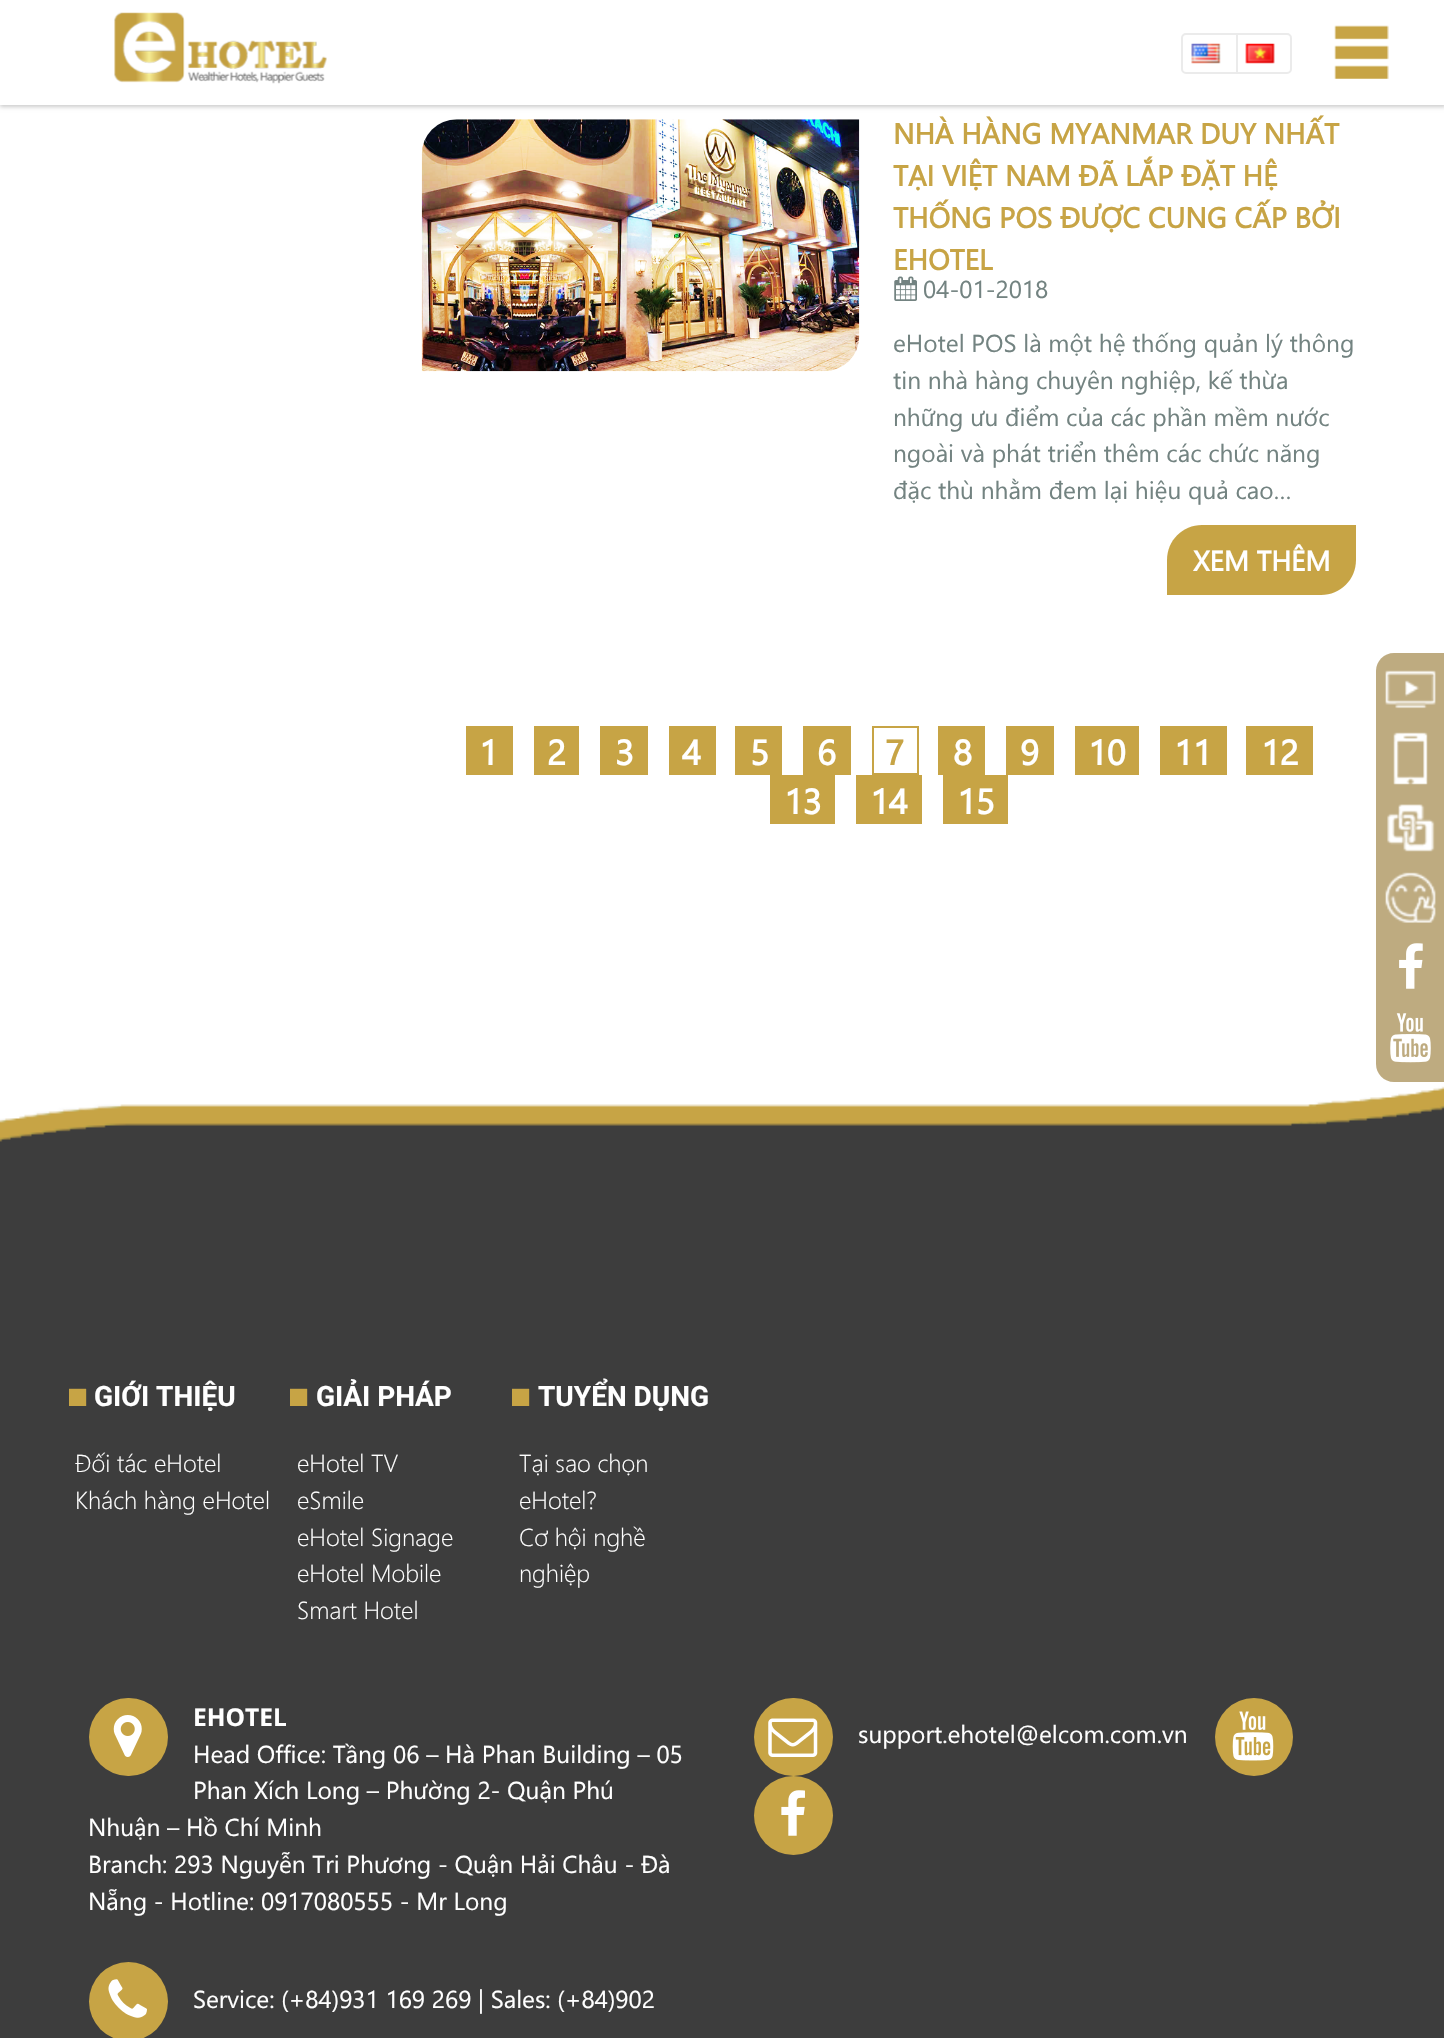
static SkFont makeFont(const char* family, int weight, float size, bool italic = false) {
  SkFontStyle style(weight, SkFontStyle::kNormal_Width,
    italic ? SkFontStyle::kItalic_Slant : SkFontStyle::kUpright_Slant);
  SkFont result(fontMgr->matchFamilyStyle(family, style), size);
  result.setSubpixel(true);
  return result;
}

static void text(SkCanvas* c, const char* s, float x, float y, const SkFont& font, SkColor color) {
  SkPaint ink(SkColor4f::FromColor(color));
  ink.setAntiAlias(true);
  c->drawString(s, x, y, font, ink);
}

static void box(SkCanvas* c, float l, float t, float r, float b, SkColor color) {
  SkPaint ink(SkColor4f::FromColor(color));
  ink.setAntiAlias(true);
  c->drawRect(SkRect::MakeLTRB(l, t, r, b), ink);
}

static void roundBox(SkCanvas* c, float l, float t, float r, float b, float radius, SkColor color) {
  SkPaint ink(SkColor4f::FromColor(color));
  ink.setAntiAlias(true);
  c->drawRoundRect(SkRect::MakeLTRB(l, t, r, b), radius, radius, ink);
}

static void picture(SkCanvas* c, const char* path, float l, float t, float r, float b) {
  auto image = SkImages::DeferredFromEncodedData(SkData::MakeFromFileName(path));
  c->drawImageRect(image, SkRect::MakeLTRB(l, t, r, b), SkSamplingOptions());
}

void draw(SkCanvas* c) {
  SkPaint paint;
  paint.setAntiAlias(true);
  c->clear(0xffffffff);
  paint.setColor(0xffcccccc);
  paint.setMaskFilter(SkMaskFilter::MakeBlur(kNormal_SkBlurStyle, 2));
  c->drawRect(SkRect::MakeLTRB(0, 2, 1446, 107), paint);
  paint.setMaskFilter(nullptr);
  box(c, 0, 0, 1444, 105, 0xffffffff);
  picture(c, "img_01.png", 114, 12, 327, 84);
  paint.setStyle(SkPaint::kStroke_Style);
  paint.setStrokeWidth(2);
  paint.setColor(0xffebebeb);
  c->drawRoundRect(SkRect::MakeLTRB(1182, 34, 1291, 73), 4, 4, paint);
  box(c, 1236, 35, 1238, 72, 0xffebebeb);
  picture(c, "img_02.png", 1191, 43, 1221, 64);
  picture(c, "img_03.png", 1245, 43, 1275, 64);
  picture(c, "img_04.png", 1334, 25, 1389, 79);
  picture(c, "img_05.png", 421, 119, 860, 372);
  SkFont face1 = makeFont("Segoe UI", 700, 28.7f);
  text(c, "NHÀ HÀNG MYANMAR DUY NHẤT", 893, 144, face1, 0xffc7a445);
  text(c, "TẠI VIỆT NAM ĐÃ LẮP ĐẶT HỆ", 893, 186, face1, 0xffc7a445);
  text(c, "THỐNG POS ĐƯỢC CUNG CẤP BỞI", 893, 228, face1, 0xffc7a445);
  text(c, "EHOTEL", 893, 270, face1, 0xffc7a445);
  picture(c, "img_06.png", 894, 276, 917, 301);
  SkFont face2 = makeFont("Segoe UI", 400, 24.5f);
  text(c, "04-01-2018", 923, 298, face2, 0xff738381);
  text(c, "eHotel POS là một hệ thống quản lý thông", 893, 352, face2, 0xff738381);
  text(c, "tin nhà hàng chuyên nghiệp, kế thừa", 893, 389, face2, 0xff738381);
  text(c, "những ưu điểm của các phần mềm nước", 893, 426, face2, 0xff738381);
  text(c, "ngoài và phát triển thêm các chức năng", 893, 462, face2, 0xff738381);
  text(c, "đặc thù nhằm đem lại hiệu quả cao…", 893, 499, face2, 0xff738381);
  paint.setStyle(SkPaint::kFill_Style);
  paint.setColor(0xffc7a445);
  c->drawPath(SkPathBuilder().moveTo(1202, 525).lineTo(1356, 525).lineTo(1356, 560).cubicTo(1356, 579.5f, 1340.5f, 595, 1321, 595).lineTo(1167, 595).lineTo(1167, 560).cubicTo(1167, 540.5f, 1182.5f, 525, 1202, 525).close().detach(), paint);
  SkFont face3 = makeFont("Segoe UI", 700, 28);
  text(c, "XEM THÊM", 1193, 571, face3, 0xffffffff);
  box(c, 466, 726, 513, 775, 0xffc7a445);
  SkFont face4 = makeFont("Segoe UI", 700, 35);
  text(c, "1", 479, 765, face4, 0xffffffff);
  box(c, 534, 726, 579, 775, 0xffc7a445);
  text(c, "2", 547, 765, face4, 0xffffffff);
  box(c, 600, 726, 648, 775, 0xffc7a445);
  text(c, "3", 615, 765, face4, 0xffffffff);
  box(c, 669, 726, 716, 775, 0xffc7a445);
  text(c, "4", 682, 765, face4, 0xffffffff);
  box(c, 735, 726, 782, 775, 0xffc7a445);
  text(c, "5", 750, 765, face4, 0xffffffff);
  box(c, 803, 726, 851, 775, 0xffc7a445);
  text(c, "6", 817, 765, face4, 0xffffffff);
  paint.setStyle(SkPaint::kStroke_Style);
  c->drawRect(SkRect::MakeLTRB(873, 727, 918, 774), paint);
  text(c, "7", 885, 765, face4, 0xffc7a445);
  box(c, 938, 726, 985, 775, 0xffc7a445);
  text(c, "8", 953, 765, face4, 0xffffffff);
  box(c, 1006, 726, 1054, 775, 0xffc7a445);
  text(c, "9", 1020, 765, face4, 0xffffffff);
  box(c, 1075, 726, 1139, 775, 0xffc7a445);
  text(c, "10", 1088, 765, face4, 0xffffffff);
  box(c, 1160, 726, 1227, 775, 0xffc7a445);
  text(c, "11", 1174, 765, face4, 0xffffffff);
  box(c, 1246, 726, 1313, 775, 0xffc7a445);
  text(c, "12", 1261, 765, face4, 0xffffffff);
  box(c, 770, 775, 835, 824, 0xffc7a445);
  text(c, "13", 784, 814, face4, 0xffffffff);
  box(c, 856, 775, 922, 824, 0xffc7a445);
  text(c, "14", 870, 814, face4, 0xffffffff);
  box(c, 943, 775, 1008, 824, 0xffc7a445);
  text(c, "15", 957, 814, face4, 0xffffffff);
  paint.setStyle(SkPaint::kFill_Style);
  paint.setColor(0xffbeab80);
  c->drawPath(SkPathBuilder().moveTo(1394, 653).lineTo(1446, 653).lineTo(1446, 1082).lineTo(1394, 1082).cubicTo(1384, 1082, 1376, 1074, 1376, 1064).lineTo(1376, 671).cubicTo(1376, 661, 1384, 653, 1394, 653).close().detach(), paint);
  picture(c, "img_07.png", 1385, 670, 1436, 709);
  picture(c, "img_08.png", 1393, 732, 1428, 785);
  picture(c, "img_09.png", 1387, 804, 1435, 852);
  picture(c, "img_10.png", 1385, 872, 1436, 923);
  picture(c, "img_11.png", 1399, 943, 1423, 989);
  picture(c, "img_12.png", 1390, 1013, 1431, 1063);
  picture(c, "img_13.png", 0, 1086, 1444, 1446);
  box(c, 0, 1446, 1444, 2038, 0xff3d3d3d);
  text(c, "■", 67, 1406, face2, 0xffc7a445);
  SkFont face5 = makeFont("Roboto", 700, 28);
  text(c, "GIỚI THIỆU", 94, 1406, face5, 0xffffffff);
  SkFont face6 = makeFont("Segoe UI", 300, 24.5f);
  text(c, "Đối tác eHotel", 75, 1472, face6, 0xffffffff);
  text(c, "Khách hàng eHotel", 75, 1509, face6, 0xffffffff);
  text(c, "■", 288, 1406, face2, 0xffc7a445);
  text(c, "GIẢI PHÁP", 316, 1406, face5, 0xffffffff);
  text(c, "eHotel TV", 297, 1472, face6, 0xffffffff);
  text(c, "eSmile", 297, 1509, face6, 0xffffffff);
  text(c, "eHotel Signage", 297, 1546, face6, 0xffffffff);
  text(c, "eHotel Mobile", 297, 1582, face6, 0xffffffff);
  text(c, "Smart Hotel", 297, 1619, face6, 0xffffffff);
  text(c, "■", 510, 1406, face2, 0xffc7a445);
  text(c, "TUYỂN DỤNG", 538, 1406, face5, 0xffffffff);
  text(c, "Tại sao chọn", 519, 1472, face6, 0xffffffff);
  text(c, "eHotel?", 519, 1509, face6, 0xffffffff);
  text(c, "Cơ hội nghề", 519, 1546, face6, 0xffffffff);
  text(c, "nghiệp", 519, 1582, face6, 0xffffffff);
  roundBox(c, 89, 1698, 168, 1776, 39, 0xffc7a445);
  picture(c, "img_14.png", 113, 1715, 142, 1757);
  SkFont face7 = makeFont("Open Sans", 700, 24.5f);
  text(c, "EHOTEL", 193, 1726, face7, 0xffffffff);
  text(c, "Head Office: Tầng 06 – Hà Phan Building – 05", 193, 1763, face2, 0xffffffff);
  text(c, "Phan Xích Long – Phường 2- Quận Phú", 193, 1799, face2, 0xffffffff);
  text(c, "Nhuận – Hồ Chí Minh", 88, 1836, face2, 0xffffffff);
  text(c, "Branch: 293 Nguyễn Tri Phương - Quận Hải Châu - Đà", 88, 1873, face2, 0xffffffff);
  text(c, "Nẵng - Hotline: 0917080555 - Mr Long", 88, 1910, face2, 0xffffffff);
  paint.setColor(0xffc7a445);
  c->drawCircle(128.5f, 2001.5f, 39.5f, paint);
  picture(c, "img_15.png", 108, 1979, 147, 2018);
  text(c, "Service: (+84)931 169 269 | Sales: (+84)902", 193, 2008, face2, 0xffffffff);
  roundBox(c, 754, 1698, 833, 1776, 39, 0xffc7a445);
  picture(c, "img_16.png", 768, 1718, 818, 1757);
  text(c, "support.ehotel@elcom.com.vn", 858, 1743, face2, 0xffffffff);
  c->drawCircle(1254, 1737, 39, paint);
  picture(c, "img_17.png", 1232, 1711, 1274, 1761);
  c->drawCircle(793.5f, 1815.5f, 39.5f, paint);
  picture(c, "img_18.png", 781, 1790, 805, 1836);
}
